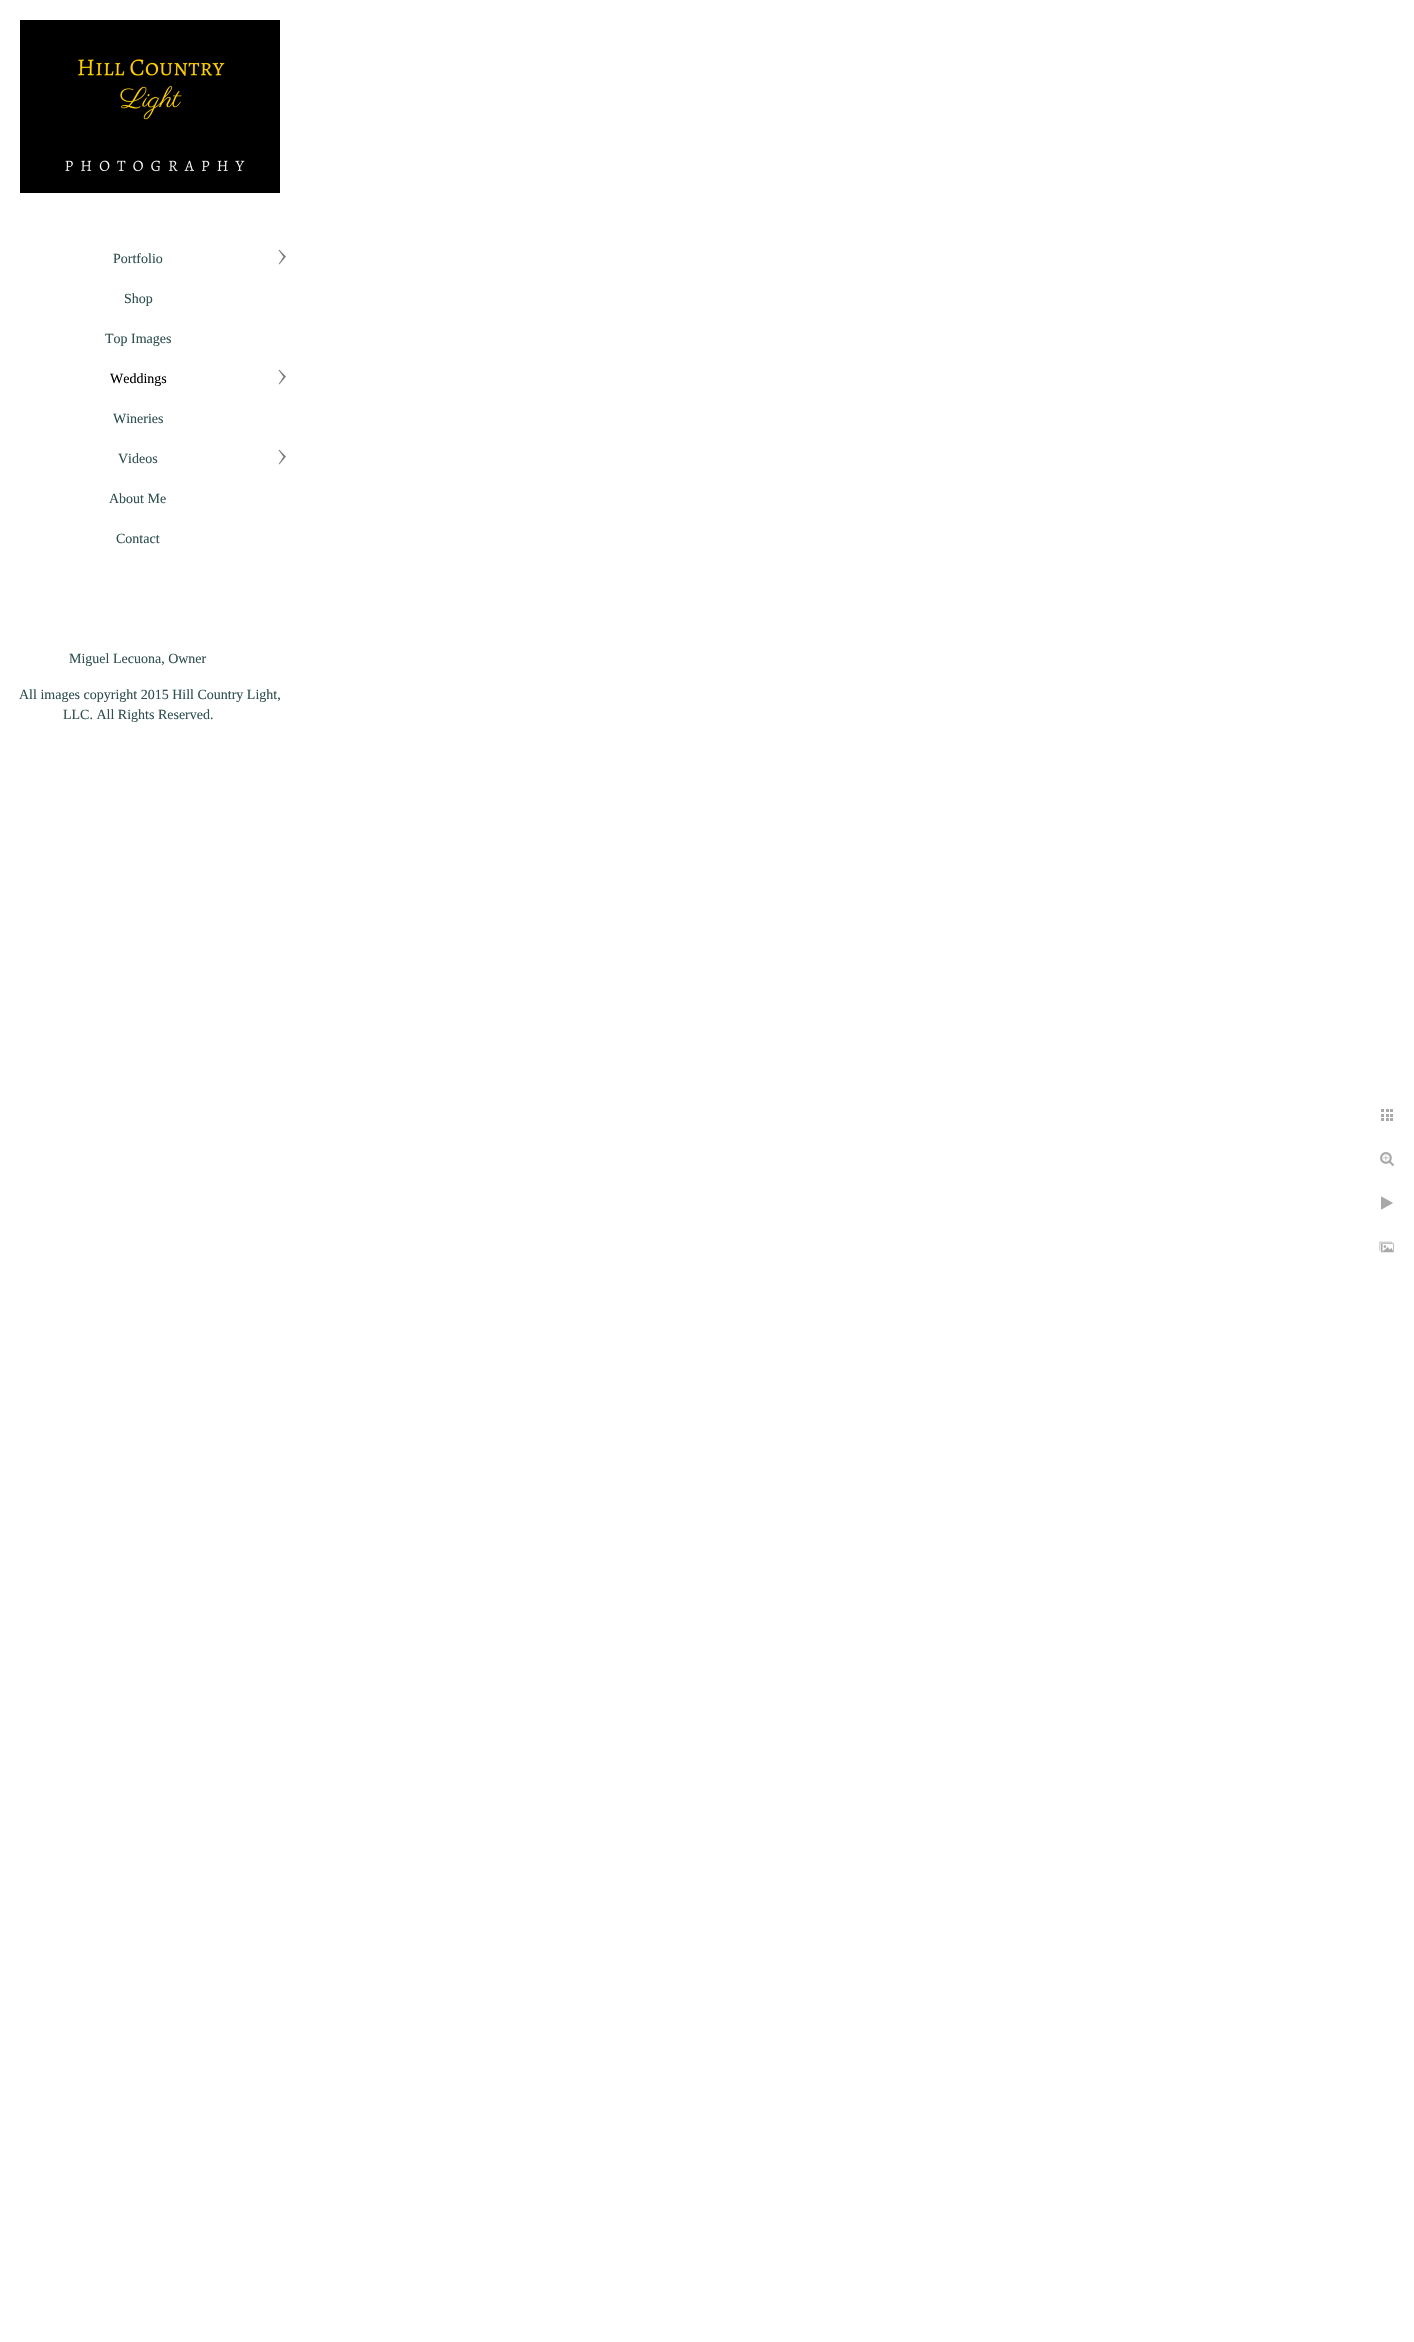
static SkFont makeFont(const char* family, int weight, float size, bool italic = false) {
  SkFontStyle style(weight, SkFontStyle::kNormal_Width,
    italic ? SkFontStyle::kItalic_Slant : SkFontStyle::kUpright_Slant);
  SkFont result(fontMgr->matchFamilyStyle(family, style), size);
  result.setSubpixel(true);
  return result;
}

static void text(SkCanvas* c, const char* s, float x, float y, const SkFont& font, SkColor color) {
  SkPaint ink(SkColor4f::FromColor(color));
  ink.setAntiAlias(true);
  c->drawString(s, x, y, font, ink);
}

static void picture(SkCanvas* c, const char* path, float l, float t, float r, float b) {
  auto image = SkImages::DeferredFromEncodedData(SkData::MakeFromFileName(path));
  c->drawImageRect(image, SkRect::MakeLTRB(l, t, r, b), SkSamplingOptions());
}

void draw(SkCanvas* c) {
  SkPaint paint;
  paint.setAntiAlias(true);
  c->clear(0xffffffff);
  picture(c, "img_01.png", 20, 20, 280, 193);
  SkFont face1 = makeFont("Liberation Serif", 400, 14);
  text(c, "Portfolio", 113, 263, face1, 0xff2f4f4f);
  picture(c, "img_02.png", 278, 249, 286, 265);
  text(c, "Shop", 124, 303, face1, 0xff2f4f4f);
  text(c, "Top Images", 105, 343, face1, 0xff2f4f4f);
  text(c, "Weddings", 110, 383, face1, 0xff000000);
  picture(c, "img_02.png", 278, 369, 286, 385);
  text(c, "Wineries", 113, 423, face1, 0xff2f4f4f);
  text(c, "Videos", 118, 463, face1, 0xff2f4f4f);
  picture(c, "img_02.png", 278, 449, 286, 465);
  text(c, "About Me", 109, 503, face1, 0xff2f4f4f);
  text(c, "Contact", 116, 543, face1, 0xff2f4f4f);
  text(c, "Miguel Lecuona, Owner", 69, 663, face1, 0xff2f4f4f);
  text(c, "All images copyright 2015 Hill Country Light,", 19, 699, face1, 0xff2f4f4f);
  text(c, "LLC. All Rights Reserved.", 63, 719, face1, 0xff2f4f4f);
  picture(c, "img_03.png", 1381, 1109, 1393, 1121);
  picture(c, "img_04.png", 1380, 1152, 1394, 1166);
  picture(c, "img_05.png", 1381, 1196, 1393, 1210);
  picture(c, "img_06.png", 1379, 1241, 1394, 1253);
}
